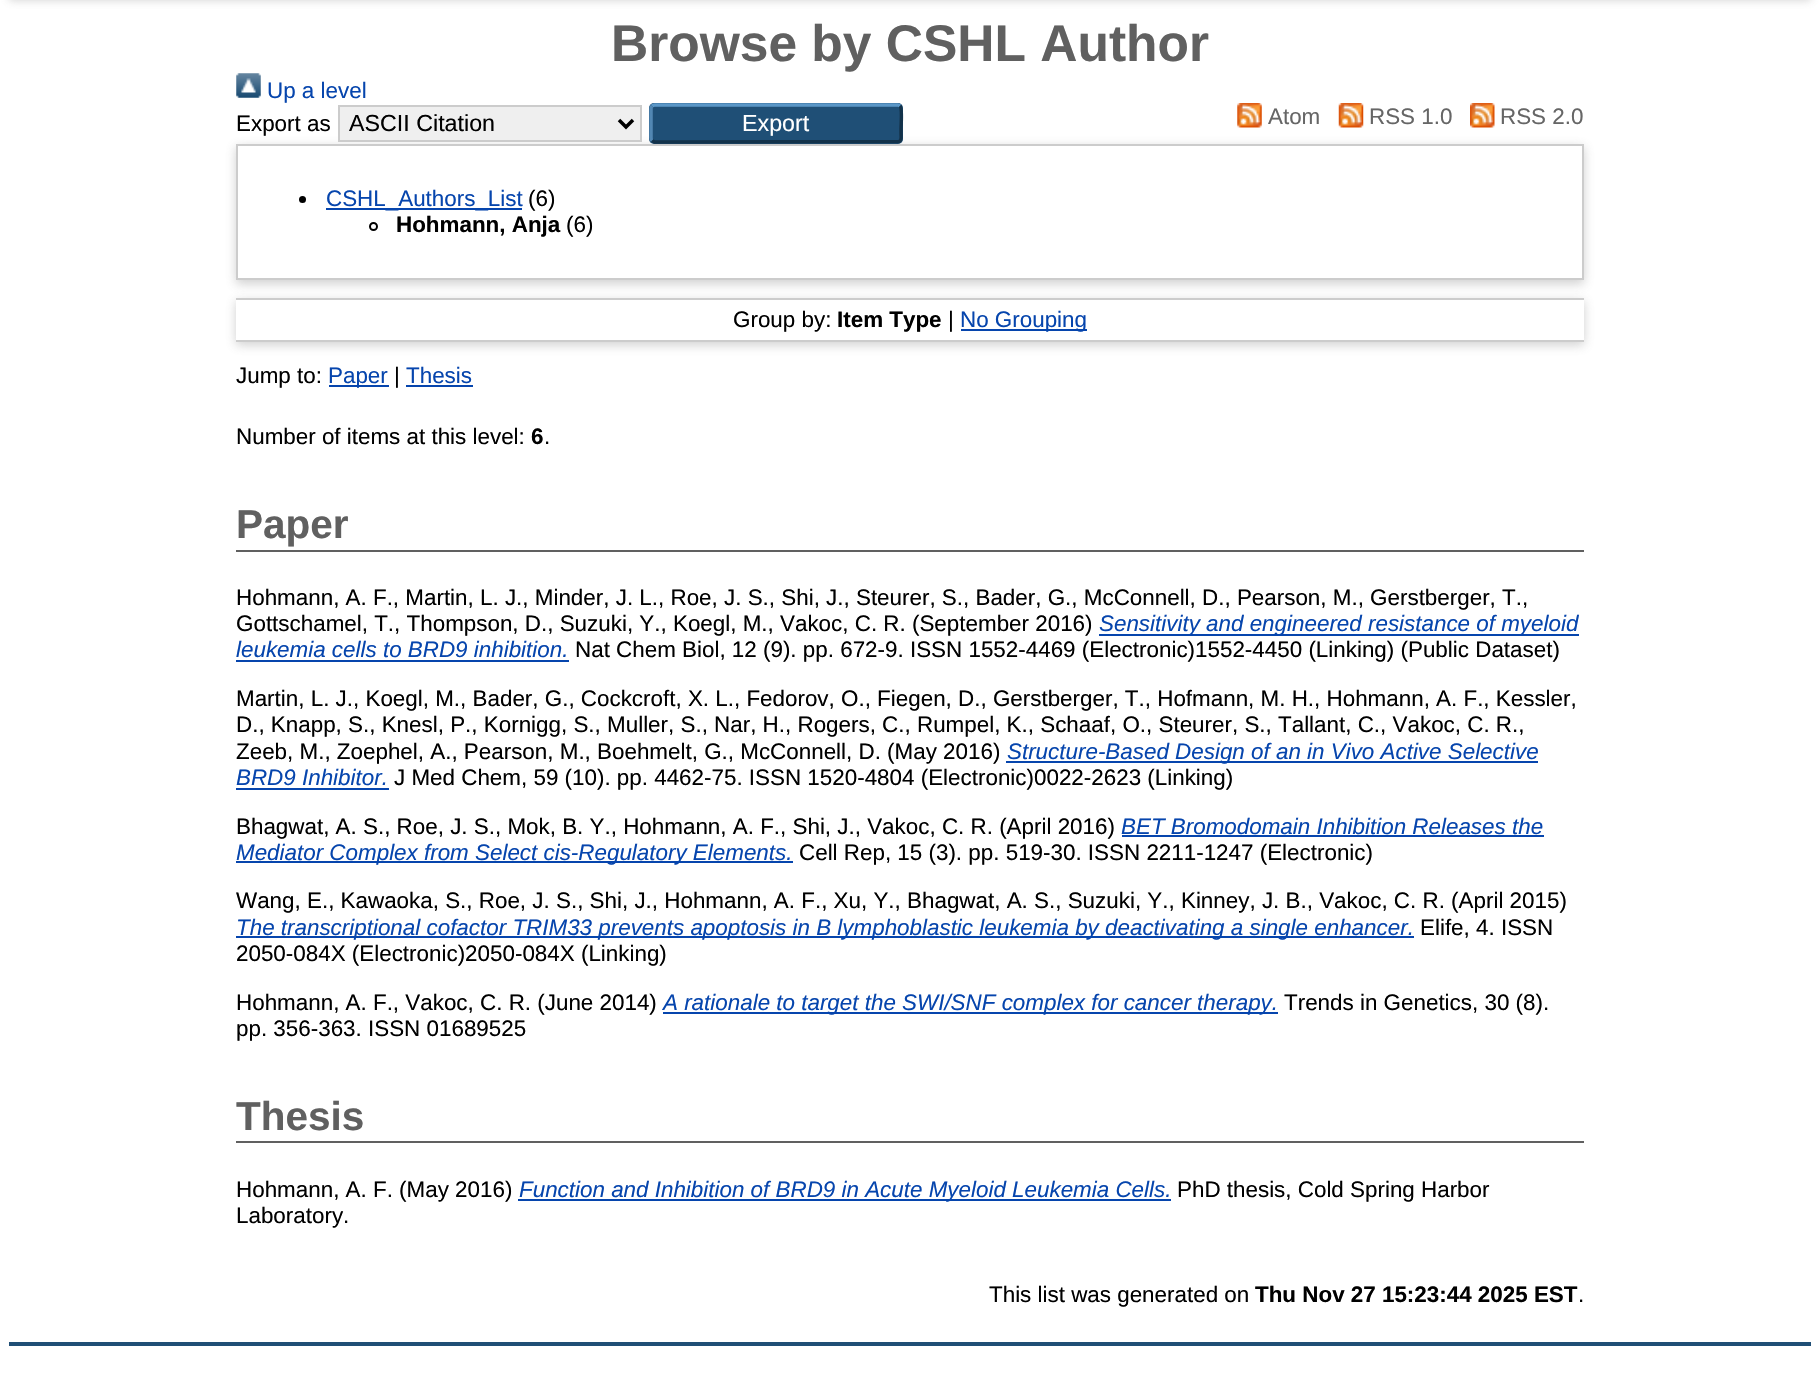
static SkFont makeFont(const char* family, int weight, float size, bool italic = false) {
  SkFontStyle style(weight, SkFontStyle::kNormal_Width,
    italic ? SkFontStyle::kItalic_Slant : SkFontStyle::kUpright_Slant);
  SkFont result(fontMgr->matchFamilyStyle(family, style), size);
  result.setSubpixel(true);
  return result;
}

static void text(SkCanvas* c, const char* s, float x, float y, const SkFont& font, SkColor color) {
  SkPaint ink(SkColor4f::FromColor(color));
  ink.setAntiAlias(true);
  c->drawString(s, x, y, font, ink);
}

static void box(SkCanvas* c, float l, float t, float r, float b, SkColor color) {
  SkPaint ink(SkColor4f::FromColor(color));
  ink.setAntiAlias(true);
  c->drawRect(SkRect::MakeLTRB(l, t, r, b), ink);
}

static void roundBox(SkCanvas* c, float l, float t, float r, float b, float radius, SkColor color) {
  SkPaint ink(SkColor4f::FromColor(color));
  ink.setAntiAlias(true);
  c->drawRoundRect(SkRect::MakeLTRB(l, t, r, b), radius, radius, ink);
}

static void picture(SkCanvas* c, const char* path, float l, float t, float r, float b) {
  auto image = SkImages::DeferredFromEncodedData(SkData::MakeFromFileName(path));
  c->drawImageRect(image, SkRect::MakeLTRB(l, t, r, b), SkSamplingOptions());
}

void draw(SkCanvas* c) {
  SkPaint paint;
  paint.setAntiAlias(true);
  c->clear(0xffffffff);
  paint.setColor(0x4d646464);
  paint.setMaskFilter(SkMaskFilter::MakeBlur(kNormal_SkBlurStyle, 5));
  c->drawRect(SkRect::MakeLTRB(9, -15, 1811, 0), paint);
  paint.setMaskFilter(nullptr);
  SkFont face1 = makeFont("Liberation Sans", 700, 51.5f);
  text(c, "Browse by CSHL Author", 611, 61, face1, 0xff606060);
  picture(c, "img_01.png", 236, 73, 261, 98);
  SkFont face2 = makeFont("Liberation Sans", 400, 22.4f);
  text(c, "Up a level", 267, 98, face2, 0xff0645ad);
  paint.setMaskFilter(SkMaskFilter::MakeBlur(kNormal_SkBlurStyle, 5));
  c->drawRect(SkRect::MakeLTRB(236, 147, 1584, 284), paint);
  paint.setMaskFilter(nullptr);
  text(c, "Export as", 236, 131, face2, 0xff000000);
  paint.setColor(0xffefefef);
  c->drawRect(SkRect::MakeLTRB(339, 106, 641, 141), paint);
  paint.setStyle(SkPaint::kStroke_Style);
  paint.setStrokeWidth(2);
  paint.setColor(0xffcccccc);
  c->drawRect(SkRect::MakeLTRB(339, 106, 641, 141), paint);
  paint.setStrokeWidth(3.5f);
  paint.setColor(0xff000000);
  c->drawPath(SkPathBuilder().moveTo(619, 120).lineTo(626, 127).lineTo(633, 120).detach(), paint);
  SkFont face3 = makeFont("Liberation Sans", 400, 23.25f);
  text(c, "ASCII Citation", 349, 131, face3, 0xff000000);
  roundBox(c, 649, 103, 903, 144, 5, 0xff1f4f76);
  paint.setColor(0xff5b97c7);
  c->drawPath(SkPathBuilder().moveTo(652, 106).cubicTo(652.5f, 105.5f, 653.5f, 105, 654.5f, 105).lineTo(898, 105).cubicTo(898.5f, 105, 899.5f, 105.5f, 900, 106).detach(), paint);
  paint.setColor(0xff13324a);
  c->drawPath(SkPathBuilder().moveTo(900, 106).cubicTo(902.5f, 108.5f, 901, 124.5f, 901, 128.5f).lineTo(901, 133.5f).cubicTo(901, 136, 902, 140.5f, 899, 141.5f).lineTo(654.5f, 142).lineTo(652, 140.5f).detach(), paint);
  paint.setColor(0xff5287b3);
  c->drawPath(SkPathBuilder().moveTo(652, 140.5f).cubicTo(651.5f, 140, 651, 139, 651, 138).lineTo(651, 108.5f).cubicTo(651, 107.5f, 651.5f, 106.5f, 652, 106).detach(), paint);
  text(c, "Export", 742, 131, face3, 0xffffffff);
  picture(c, "img_02.png", 1237, 103, 1262, 128);
  text(c, "Atom", 1268, 124, face2, 0xff666666);
  picture(c, "img_03.png", 1338, 103, 1364, 128);
  text(c, "RSS 1.0", 1369, 124, face2, 0xff666666);
  picture(c, "img_04.png", 1470, 103, 1495, 128);
  text(c, "RSS 2.0", 1500, 124, face2, 0xff666666);
  paint.setStyle(SkPaint::kFill_Style);
  paint.setColor(0xffffffff);
  c->drawRect(SkRect::MakeLTRB(237, 145, 1583, 279), paint);
  paint.setStyle(SkPaint::kStroke_Style);
  paint.setStrokeWidth(2);
  paint.setColor(0xffcccccc);
  c->drawRect(SkRect::MakeLTRB(237, 145, 1583, 279), paint);
  paint.setStyle(SkPaint::kFill_Style);
  paint.setColor(0xff000000);
  c->drawCircle(302.5f, 199.5f, 3.5f, paint);
  box(c, 326, 208, 522, 210, 0xff0645ad);
  text(c, "CSHL_Authors_List", 326, 206, face2, 0xff0645ad);
  text(c, "(6)", 528, 206, face2, 0xff000000);
  paint.setStyle(SkPaint::kStroke_Style);
  c->drawCircle(373.5f, 226.5f, 3.5f, paint);
  SkFont face4 = makeFont("Liberation Sans", 700, 22.4f);
  text(c, "Hohmann, Anja", 396, 232, face4, 0xff000000);
  text(c, "(6)", 566, 232, face2, 0xff000000);
  paint.setStyle(SkPaint::kFill_Style);
  paint.setColor(0x4d646464);
  paint.setMaskFilter(SkMaskFilter::MakeBlur(kNormal_SkBlurStyle, 5));
  c->drawRect(SkRect::MakeLTRB(236, 301, 1584, 345), paint);
  paint.setMaskFilter(nullptr);
  box(c, 236, 300, 1584, 340, 0xffffffff);
  box(c, 236, 298, 1584, 300, 0xffcccccc);
  box(c, 236, 340, 1584, 342, 0xffcccccc);
  text(c, "Group by:", 733, 327, face2, 0xff000000);
  text(c, "Item Type", 837, 327, face4, 0xff000000);
  text(c, "|", 948, 327, face2, 0xff000000);
  box(c, 961, 329, 1087, 331, 0xff0645ad);
  text(c, "No Grouping", 960, 327, face2, 0xff0645ad);
  text(c, "Jump to:", 236, 383, face2, 0xff000000);
  box(c, 329, 385, 389, 387, 0xff0645ad);
  text(c, "Paper", 328, 383, face2, 0xff0645ad);
  text(c, "|", 394, 383, face2, 0xff000000);
  text(c, "Thesis", 406, 383, face2, 0xff0645ad);
  box(c, 406, 385, 473, 387, 0xff0645ad);
  text(c, "Number of items at this level:", 236, 444, face2, 0xff000000);
  text(c, "6", 531, 444, face4, 0xff000000);
  text(c, ".", 544, 444, face2, 0xff000000);
  box(c, 236, 550, 1584, 552, 0xff606060);
  SkFont face5 = makeFont("Liberation Sans", 700, 40.5f);
  text(c, "Paper", 236, 538, face5, 0xff606060);
  text(c, "Hohmann, A. F., Martin, L. J., Minder, J. L., Roe, J. S., Shi, J., Steurer, S., Bader, G., McConnell, D., Pearson, M., Gerstberger, T.,", 236, 605, face2, 0xff000000);
  text(c, "Gottschamel, T., Thompson, D., Suzuki, Y., Koegl, M., Vakoc, C. R. (September 2016)", 236, 631, face2, 0xff000000);
  box(c, 1099, 634, 1579, 636, 0xff0645ad);
  SkFont face6 = makeFont("Liberation Sans", 400, 22.4f, true);
  text(c, "Sensitivity and engineered resistance of myeloid", 1099, 631, face6, 0xff0645ad);
  text(c, "leukemia cells to BRD9 inhibition.", 236, 657, face6, 0xff0645ad);
  box(c, 236, 660, 569, 662, 0xff0645ad);
  text(c, "Nat Chem Biol, 12 (9). pp. 672-9. ISSN 1552-4469 (Electronic)1552-4450 (Linking) (Public Dataset)", 575, 657, face2, 0xff000000);
  text(c, "Martin, L. J., Koegl, M., Bader, G., Cockcroft, X. L., Fedorov, O., Fiegen, D., Gerstberger, T., Hofmann, M. H., Hohmann, A. F., Kessler,", 236, 706, face2, 0xff000000);
  text(c, "D., Knapp, S., Knesl, P., Kornigg, S., Muller, S., Nar, H., Rogers, C., Rumpel, K., Schaaf, O., Steurer, S., Tallant, C., Vakoc, C. R.,", 236, 732, face2, 0xff000000);
  text(c, "Zeeb, M., Zoephel, A., Pearson, M., Boehmelt, G., McConnell, D. (May 2016)", 236, 759, face2, 0xff000000);
  box(c, 1006, 761, 1538, 763, 0xff0645ad);
  text(c, "Structure-Based Design of an in Vivo Active Selective", 1007, 759, face6, 0xff0645ad);
  text(c, "BRD9 Inhibitor.", 236, 785, face6, 0xff0645ad);
  box(c, 236, 788, 389, 790, 0xff0645ad);
  text(c, "J Med Chem, 59 (10). pp. 4462-75. ISSN 1520-4804 (Electronic)0022-2623 (Linking)", 394, 785, face2, 0xff000000);
  text(c, "Bhagwat, A. S., Roe, J. S., Mok, B. Y., Hohmann, A. F., Shi, J., Vakoc, C. R. (April 2016)", 236, 834, face2, 0xff000000);
  text(c, "BET Bromodomain Inhibition Releases the", 1121, 834, face6, 0xff0645ad);
  box(c, 1122, 835, 1544, 837, 0xff0645ad);
  box(c, 236, 861, 793, 863, 0xff0645ad);
  text(c, "Mediator Complex from Select cis-Regulatory Elements.", 236, 860, face6, 0xff0645ad);
  text(c, "Cell Rep, 15 (3). pp. 519-30. ISSN 2211-1247 (Electronic)", 799, 860, face2, 0xff000000);
  text(c, "Wang, E., Kawaoka, S., Roe, J. S., Shi, J., Hohmann, A. F., Xu, Y., Bhagwat, A. S., Suzuki, Y., Kinney, J. B., Vakoc, C. R. (April 2015)", 236, 908, face2, 0xff000000);
  box(c, 236, 936, 1414, 938, 0xff0645ad);
  text(c, "The transcriptional cofactor TRIM33 prevents apoptosis in B lymphoblastic leukemia by deactivating a single enhancer.", 236, 935, face6, 0xff0645ad);
  text(c, "Elife, 4. ISSN", 1420, 935, face2, 0xff000000);
  text(c, "2050-084X (Electronic)2050-084X (Linking)", 236, 961, face2, 0xff000000);
  text(c, "Hohmann, A. F., Vakoc, C. R. (June 2014)", 236, 1010, face2, 0xff000000);
  box(c, 663, 1012, 1278, 1014, 0xff0645ad);
  text(c, "A rationale to target the SWI/SNF complex for cancer therapy.", 663, 1010, face6, 0xff0645ad);
  text(c, "Trends in Genetics, 30 (8).", 1284, 1010, face2, 0xff000000);
  text(c, "pp. 356-363. ISSN 01689525", 236, 1036, face2, 0xff000000);
  box(c, 236, 1141, 1584, 1143, 0xff606060);
  text(c, "Thesis", 236, 1130, face5, 0xff606060);
  text(c, "Hohmann, A. F. (May 2016)", 236, 1197, face2, 0xff000000);
  box(c, 518, 1199, 1171, 1201, 0xff0645ad);
  text(c, "Function and Inhibition of BRD9 in Acute Myeloid Leukemia Cells.", 519, 1197, face6, 0xff0645ad);
  text(c, "PhD thesis, Cold Spring Harbor", 1177, 1197, face2, 0xff000000);
  text(c, "Laboratory.", 236, 1223, face2, 0xff000000);
  text(c, "This list was generated on", 989, 1302, face2, 0xff000000);
  text(c, "Thu Nov 27 15:23:44 2025 EST", 1255, 1302, face4, 0xff000000);
  text(c, ".", 1578, 1302, face2, 0xff000000);
  box(c, 9, 1342, 1811, 1346, 0xff204f76);
}
